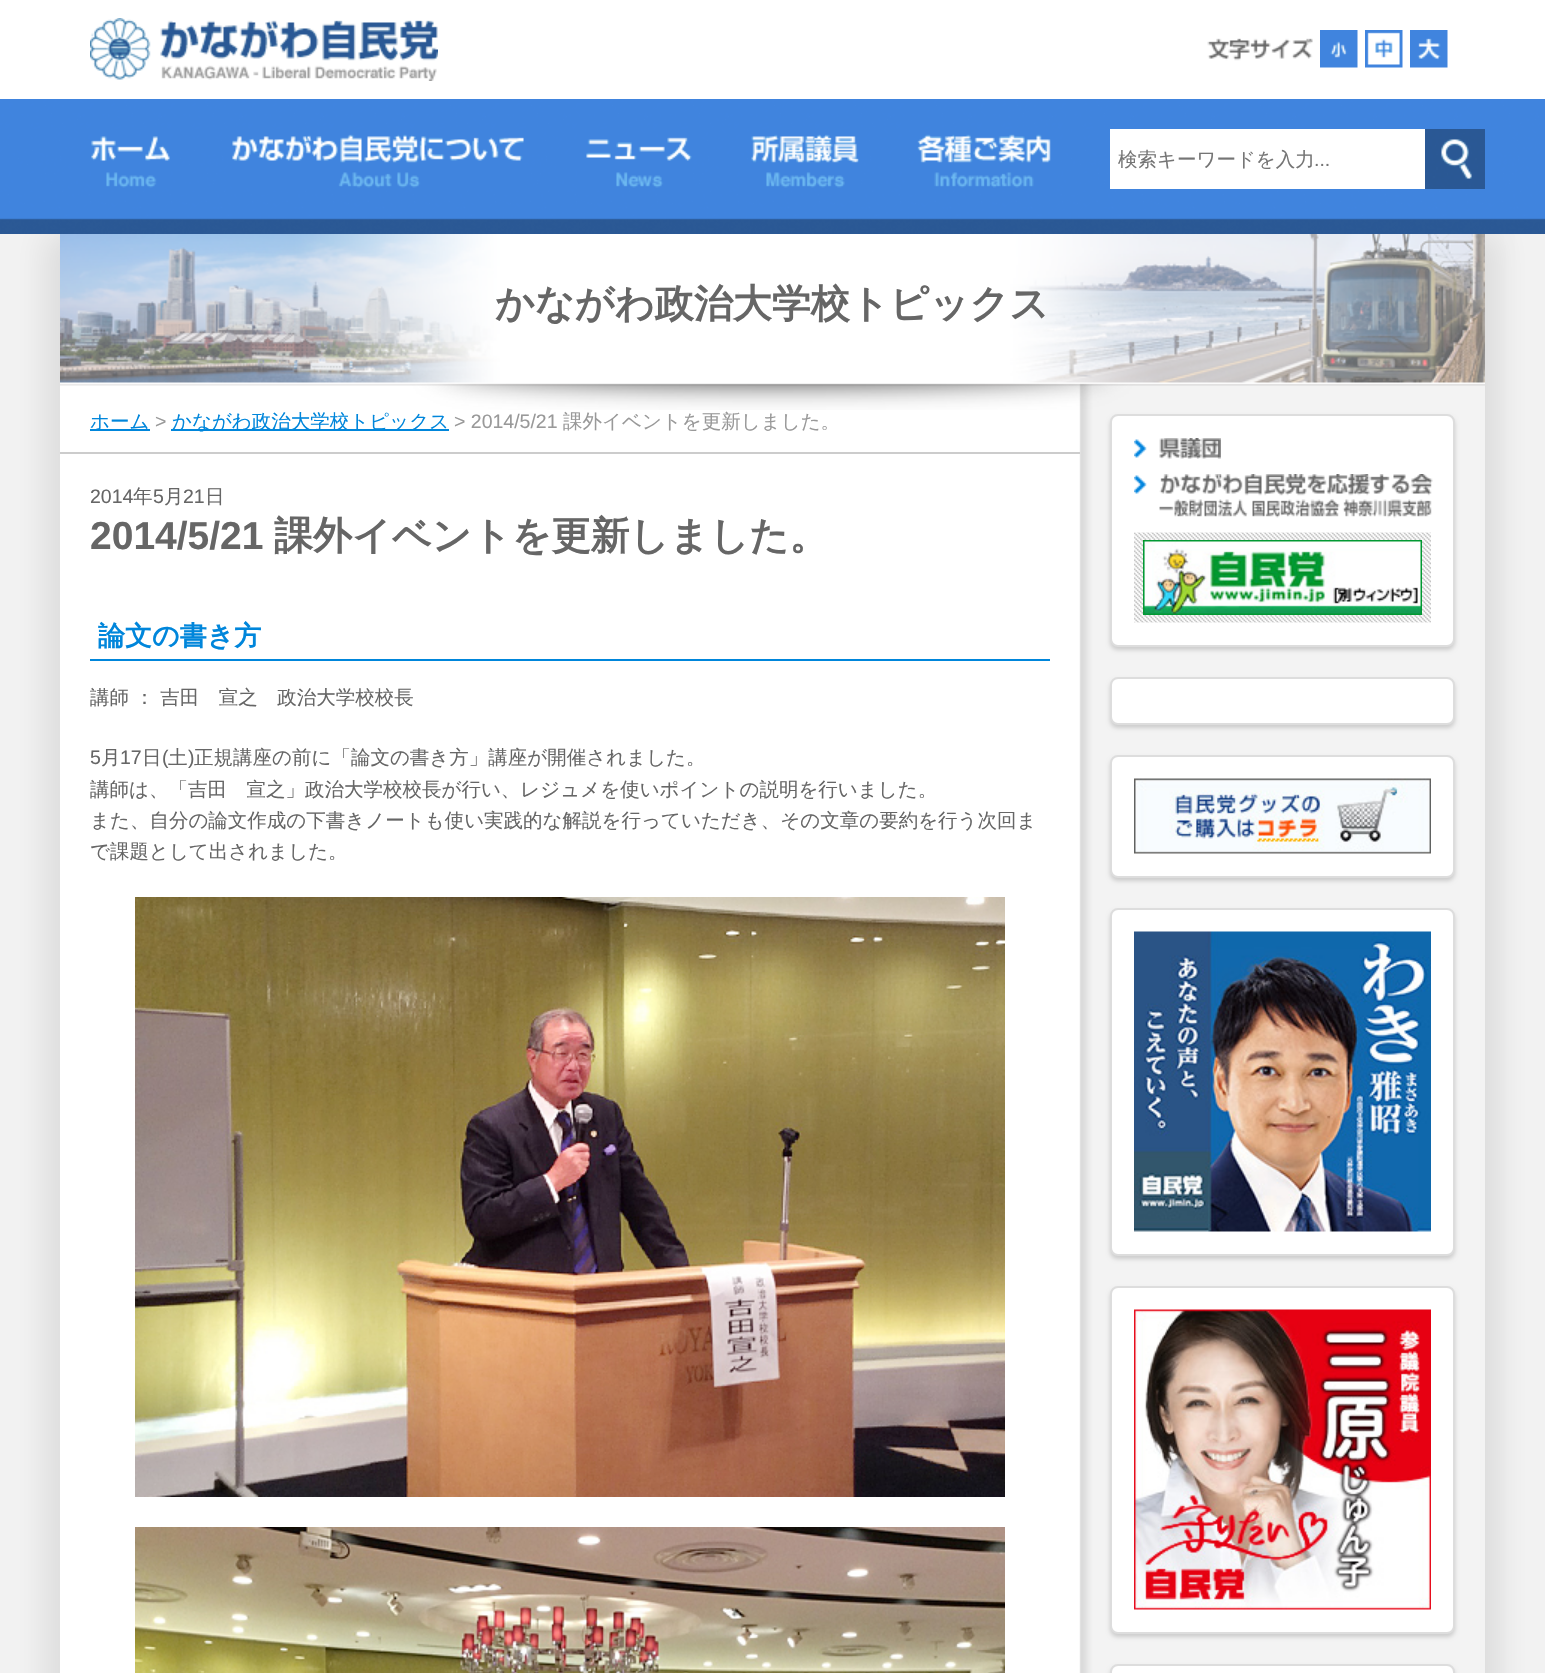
static SkFont makeFont(const char* family, int weight, float size, bool italic = false) {
  SkFontStyle style(weight, SkFontStyle::kNormal_Width,
    italic ? SkFontStyle::kItalic_Slant : SkFontStyle::kUpright_Slant);
  SkFont result(fontMgr->matchFamilyStyle(family, style), size);
  result.setSubpixel(true);
  return result;
}

static void text(SkCanvas* c, const char* s, float x, float y, const SkFont& font, SkColor color) {
  SkPaint ink(SkColor4f::FromColor(color));
  ink.setAntiAlias(true);
  c->drawString(s, x, y, font, ink);
}

static void box(SkCanvas* c, float l, float t, float r, float b, SkColor color) {
  SkPaint ink(SkColor4f::FromColor(color));
  ink.setAntiAlias(true);
  c->drawRect(SkRect::MakeLTRB(l, t, r, b), ink);
}

static void picture(SkCanvas* c, const char* path, float l, float t, float r, float b) {
  auto image = SkImages::DeferredFromEncodedData(SkData::MakeFromFileName(path));
  c->drawImageRect(image, SkRect::MakeLTRB(l, t, r, b), SkSamplingOptions());
}

void draw(SkCanvas* c) {
  SkPaint paint;
  paint.setAntiAlias(true);
  c->clear(0xfff3f3f3);
  box(c, 0, 0, 1545, 99, 0xffffffff);
  picture(c, "img_01.png", 90, 18, 438, 81);
  picture(c, "img_02.png", 1207, 38, 1313, 61);
  picture(c, "img_03.png", 1320, 30, 1358, 68);
  picture(c, "img_04.png", 1365, 30, 1403, 68);
  picture(c, "img_05.png", 1410, 30, 1448, 68);
  paint.setColor(0xffdddddd);
  paint.setMaskFilter(SkMaskFilter::MakeBlur(kNormal_SkBlurStyle, 15));
  c->drawRect(SkRect::MakeLTRB(75, 234, 1500, 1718), paint);
  paint.setMaskFilter(nullptr);
  paint.setMaskFilter(SkMaskFilter::MakeBlur(kNormal_SkBlurStyle, 15));
  c->drawRect(SkRect::MakeLTRB(45, 234, 1470, 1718), paint);
  paint.setMaskFilter(nullptr);
  picture(c, "img_06.png", 0, 99, 1545, 234);
  picture(c, "img_07.png", 91, 136, 170, 188);
  picture(c, "img_08.png", 232, 134, 524, 188);
  picture(c, "img_09.png", 586, 137, 692, 188);
  picture(c, "img_10.png", 751, 134, 859, 188);
  picture(c, "img_11.png", 917, 134, 1051, 188);
  box(c, 1110, 129, 1425, 189, 0xffffffff);
  SkFont face1 = makeFont("WenQuanYi Zen Hei", 500, 19.5f);
  text(c, "検索キーワードを入力", 1118, 166, face1, 0xff757575);
  SkFont face2 = makeFont("Liberation Sans", 400, 19.5f);
  text(c, "...", 1314, 166, face2, 0xff757575);
  picture(c, "img_12.png", 1425, 129, 1485, 189);
  box(c, 60, 383, 1079, 1673, 0xffffffff);
  picture(c, "img_13.png", 1079, 383, 1485, 1673);
  picture(c, "img_14.png", 60, 234, 1485, 410);
  SkFont face3 = makeFont("WenQuanYi Zen Hei", 700, 39);
  text(c, "かながわ政治大学校トピックス", 495, 317, face3, 0xff666666);
  box(c, 60, 452, 1080, 454, 0xffcccccc);
  box(c, 90, 429, 150, 431, 0xff0086db);
  text(c, "ホーム", 90, 428, face1, 0xff0086db);
  text(c, ">", 155, 428, face2, 0xff999999);
  box(c, 171, 429, 449, 431, 0xff0086db);
  text(c, "かながわ政治大学校トピックス", 172, 428, face1, 0xff0086db);
  text(c, "> 2014/5/21", 454, 428, face2, 0xff999999);
  text(c, "課外イベントを更新しました。", 563, 428, face1, 0xff999999);
  text(c, "2014", 90, 503, face2, 0xff666666);
  text(c, "年", 133, 503, face1, 0xff666666);
  text(c, "5", 153, 503, face2, 0xff666666);
  text(c, "月", 164, 503, face1, 0xff666666);
  text(c, "21", 183, 503, face2, 0xff666666);
  text(c, "日", 205, 503, face1, 0xff666666);
  SkFont face4 = makeFont("Liberation Sans", 700, 39);
  text(c, "2014/5/21", 90, 549, face4, 0xff666666);
  text(c, "課外イベントを更新しました。", 274, 549, face3, 0xff666666);
  box(c, 90, 659, 1050, 661, 0xff0086db);
  SkFont face5 = makeFont("WenQuanYi Zen Hei", 700, 27);
  text(c, "論文の書き方", 98, 645, face5, 0xff0086db);
  text(c, "講師 ： 吉田　宣之　政治大学校校長", 90, 704, face1, 0xff666666);
  text(c, "5", 90, 764, face2, 0xff666666);
  text(c, "月", 101, 764, face1, 0xff666666);
  text(c, "17", 120, 764, face2, 0xff666666);
  text(c, "日", 142, 764, face1, 0xff666666);
  text(c, "(", 162, 764, face2, 0xff666666);
  text(c, "土", 168, 764, face1, 0xff666666);
  text(c, ")", 188, 764, face2, 0xff666666);
  text(c, "正規講座の前に「論文の書き方」講座が開催されました。", 194, 764, face1, 0xff666666);
  text(c, "講師は、「吉田　宣之」政治大学校校長が行い、レジュメを使いポイントの説明を行いました。", 90, 796, face1, 0xff666666);
  text(c, "また、自分の論文作成の下書きノートも使い実践的な解説を行っていただき、その文章の要約を行う次回ま", 90, 827, face1, 0xff666666);
  text(c, "で課題として出されました。", 90, 858, face1, 0xff666666);
  picture(c, "img_15.png", 135, 897, 1005, 1497);
  picture(c, "img_16.png", 135, 1527, 1005, 1673);
  paint.setColor(0xffcccccc);
  paint.setMaskFilter(SkMaskFilter::MakeBlur(kNormal_SkBlurStyle, 2));
  c->drawRoundRect(SkRect::MakeLTRB(1110, 417, 1455, 650), 8, 8, paint);
  paint.setMaskFilter(nullptr);
  paint.setColor(0xffffffff);
  c->drawRoundRect(SkRect::MakeLTRB(1111, 415, 1454, 646), 7, 7, paint);
  paint.setStyle(SkPaint::kStroke_Style);
  paint.setStrokeWidth(2);
  paint.setColor(0xffdddddd);
  c->drawRoundRect(SkRect::MakeLTRB(1111, 415, 1454, 646), 7, 7, paint);
  picture(c, "img_17.png", 1134, 438, 1221, 459);
  picture(c, "img_18.png", 1134, 474, 1433, 518);
  picture(c, "img_19.png", 1134, 532, 1431, 623);
  picture(c, "img_20.png", 1143, 540, 1422, 615);
  paint.setStyle(SkPaint::kFill_Style);
  paint.setColor(0xffcccccc);
  paint.setMaskFilter(SkMaskFilter::MakeBlur(kNormal_SkBlurStyle, 2));
  c->drawRoundRect(SkRect::MakeLTRB(1110, 680, 1455, 728), 8, 8, paint);
  paint.setMaskFilter(nullptr);
  paint.setColor(0xffffffff);
  c->drawRoundRect(SkRect::MakeLTRB(1111, 678, 1454, 724), 7, 7, paint);
  paint.setStyle(SkPaint::kStroke_Style);
  paint.setColor(0xffdddddd);
  c->drawRoundRect(SkRect::MakeLTRB(1111, 678, 1454, 724), 7, 7, paint);
  paint.setStyle(SkPaint::kFill_Style);
  paint.setColor(0xffcccccc);
  paint.setMaskFilter(SkMaskFilter::MakeBlur(kNormal_SkBlurStyle, 2));
  c->drawRoundRect(SkRect::MakeLTRB(1110, 758, 1455, 881), 8, 8, paint);
  paint.setMaskFilter(nullptr);
  paint.setColor(0xffffffff);
  c->drawRoundRect(SkRect::MakeLTRB(1111, 756, 1454, 877), 7, 7, paint);
  paint.setStyle(SkPaint::kStroke_Style);
  paint.setColor(0xffdddddd);
  c->drawRoundRect(SkRect::MakeLTRB(1111, 756, 1454, 877), 7, 7, paint);
  picture(c, "img_21.png", 1134, 778, 1431, 854);
  paint.setStyle(SkPaint::kFill_Style);
  paint.setColor(0xffcccccc);
  paint.setMaskFilter(SkMaskFilter::MakeBlur(kNormal_SkBlurStyle, 2));
  c->drawRoundRect(SkRect::MakeLTRB(1110, 911, 1455, 1259), 8, 8, paint);
  paint.setMaskFilter(nullptr);
  paint.setColor(0xffffffff);
  c->drawRoundRect(SkRect::MakeLTRB(1111, 909, 1454, 1255), 7, 7, paint);
  paint.setStyle(SkPaint::kStroke_Style);
  paint.setColor(0xffdddddd);
  c->drawRoundRect(SkRect::MakeLTRB(1111, 909, 1454, 1255), 7, 7, paint);
  picture(c, "img_22.png", 1134, 931, 1431, 1232);
  paint.setStyle(SkPaint::kFill_Style);
  paint.setColor(0xffcccccc);
  paint.setMaskFilter(SkMaskFilter::MakeBlur(kNormal_SkBlurStyle, 2));
  c->drawRoundRect(SkRect::MakeLTRB(1110, 1289, 1455, 1637), 8, 8, paint);
  paint.setMaskFilter(nullptr);
  paint.setColor(0xffffffff);
  c->drawRoundRect(SkRect::MakeLTRB(1111, 1287, 1454, 1633), 7, 7, paint);
  paint.setStyle(SkPaint::kStroke_Style);
  paint.setColor(0xffdddddd);
  c->drawRoundRect(SkRect::MakeLTRB(1111, 1287, 1454, 1633), 7, 7, paint);
  picture(c, "img_23.png", 1134, 1309, 1431, 1610);
  paint.setStyle(SkPaint::kFill_Style);
  paint.setColor(0xffcccccc);
  paint.setMaskFilter(SkMaskFilter::MakeBlur(kNormal_SkBlurStyle, 2));
  c->drawRoundRect(SkRect::MakeLTRB(1110, 1667, 1455, 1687), 8, 8, paint);
  paint.setMaskFilter(nullptr);
  paint.setColor(0xffffffff);
  c->drawRoundRect(SkRect::MakeLTRB(1111, 1665, 1454, 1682), 7, 7, paint);
  paint.setStyle(SkPaint::kStroke_Style);
  paint.setColor(0xffdddddd);
  c->drawRoundRect(SkRect::MakeLTRB(1111, 1665, 1454, 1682), 7, 7, paint);
}
